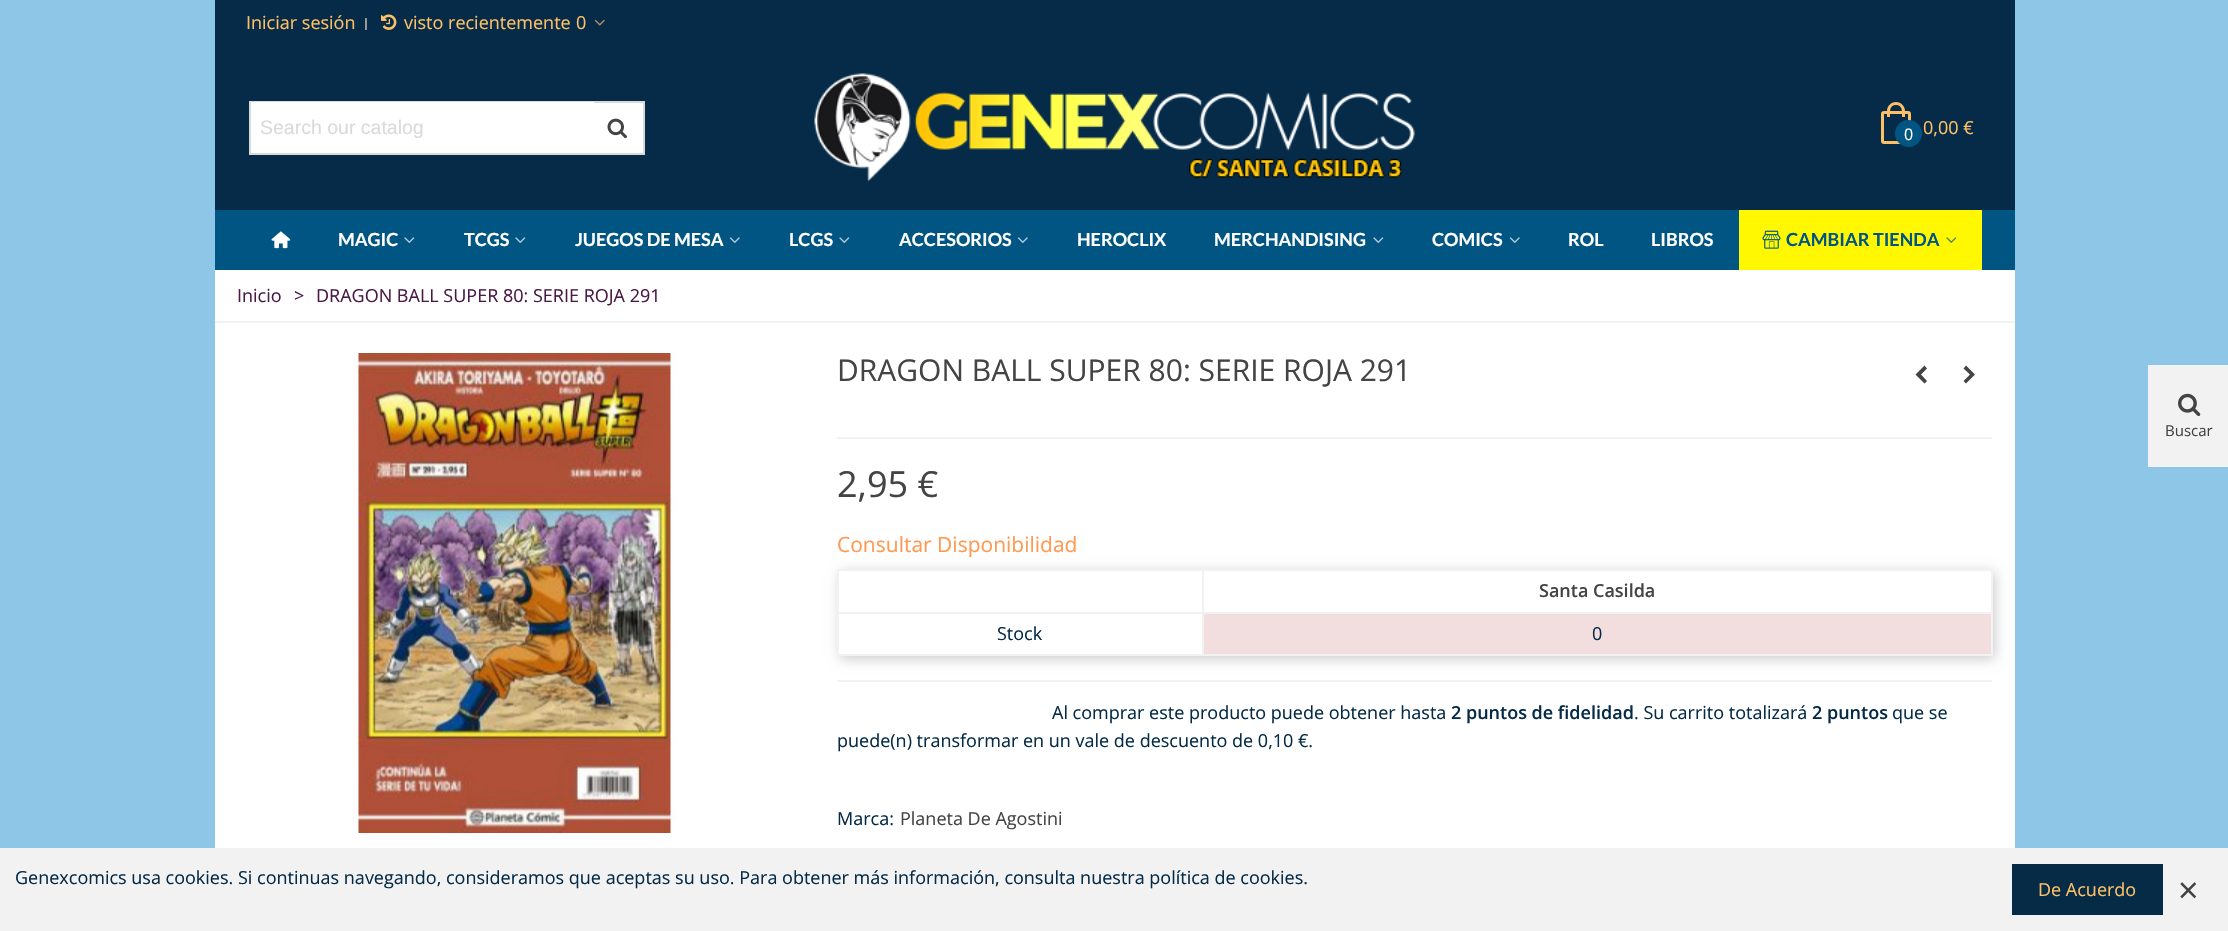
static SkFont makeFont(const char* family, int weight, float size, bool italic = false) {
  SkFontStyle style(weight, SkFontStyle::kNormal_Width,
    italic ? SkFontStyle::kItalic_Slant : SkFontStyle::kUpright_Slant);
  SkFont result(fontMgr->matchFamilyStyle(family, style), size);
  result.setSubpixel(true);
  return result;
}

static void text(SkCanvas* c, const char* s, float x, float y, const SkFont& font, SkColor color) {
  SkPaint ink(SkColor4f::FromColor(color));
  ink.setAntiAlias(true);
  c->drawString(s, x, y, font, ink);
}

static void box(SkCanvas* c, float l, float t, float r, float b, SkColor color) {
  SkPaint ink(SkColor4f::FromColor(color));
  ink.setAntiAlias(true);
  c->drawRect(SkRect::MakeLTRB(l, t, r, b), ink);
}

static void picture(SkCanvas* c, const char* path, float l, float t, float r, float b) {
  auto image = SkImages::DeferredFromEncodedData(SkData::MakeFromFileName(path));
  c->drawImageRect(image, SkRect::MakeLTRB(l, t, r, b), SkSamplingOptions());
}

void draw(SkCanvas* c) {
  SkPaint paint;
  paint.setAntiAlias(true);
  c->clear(0xff8dc6e6);
  box(c, 215, 270, 2015, 848, 0xffffffff);
  box(c, 215, 0, 2015, 210, 0xff052b48);
  SkFont face1 = makeFont("Open Sans", 400, 18);
  text(c, "Iniciar sesión", 246, 29, face1, 0xfffdc066);
  box(c, 365, 18, 367, 30, 0xff999999);
  picture(c, "img_01.png", 381, 14, 397, 30);
  text(c, "visto recientemente", 404, 29, face1, 0xfffdc066);
  text(c, "0", 576, 29, face1, 0xfffdc066);
  picture(c, "img_02.png", 594, 19, 605, 26);
  box(c, 594, 103, 643, 153, 0xffffffff);
  paint.setStyle(SkPaint::kStroke_Style);
  paint.setStrokeWidth(2);
  paint.setColor(0xffd9d9d9);
  c->drawRect(SkRect::MakeLTRB(250, 102, 644, 154), paint);
  box(c, 251, 102, 594, 153, 0xffffffff);
  SkFont face2 = makeFont("Liberation Sans", 400, 19.5f);
  text(c, "Search our catalog", 260, 134, face2, 0xffdadada);
  picture(c, "img_03.png", 607, 118, 627, 139);
  picture(c, "img_04.png", 814, 73, 1415, 182);
  paint.setStrokeWidth(3);
  paint.setColor(0xfffdc066);
  c->drawRoundRect(SkRect::MakeLTRB(1882.5f, 112.5f, 1909.5f, 142.5f), 1.5f, 1.5f, paint);
  paint.setStyle(SkPaint::kFill_Style);
  c->drawPath(SkPathBuilder(SkPathFillType::kEvenOdd).moveTo(1896, 102).cubicTo(1901, 102, 1905, 106, 1905, 111).lineTo(1905, 117).lineTo(1887, 117).lineTo(1887, 111).cubicTo(1887, 106, 1891, 102, 1896, 102).close().moveTo(1896, 105).cubicTo(1903, 105, 1902, 112.5f, 1902, 117).lineTo(1890, 117).cubicTo(1890, 112.5f, 1889, 105, 1896, 105).close().detach(), paint);
  paint.setColor(0xff015583);
  c->drawCircle(1908.5f, 133.5f, 12, paint);
  paint.setStyle(SkPaint::kStroke_Style);
  c->drawCircle(1908.5f, 133.5f, 12, paint);
  SkFont face3 = makeFont("Open Sans", 400, 16);
  text(c, "0", 1904, 140, face3, 0xffffffff);
  text(c, "0,00 €", 1923, 134, face1, 0xfffdc066);
  box(c, 215, 210, 2015, 270, 0xff015583);
  picture(c, "img_05.png", 271, 231, 291, 249);
  SkFont face4 = makeFont("Lato", 700, 18);
  text(c, "MAGIC", 338, 246, face4, 0xffffffff);
  picture(c, "img_06.png", 404, 237, 415, 243);
  text(c, "TCGS", 464, 246, face4, 0xffffffff);
  picture(c, "img_06.png", 515, 237, 526, 243);
  text(c, "JUEGOS DE MESA", 575, 246, face4, 0xffffffff);
  picture(c, "img_07.png", 729, 237, 740, 243);
  text(c, "LCGS", 789, 246, face4, 0xffffffff);
  picture(c, "img_06.png", 839, 237, 850, 243);
  text(c, "ACCESORIOS", 899, 246, face4, 0xffffffff);
  picture(c, "img_07.png", 1017, 237, 1028, 243);
  text(c, "HEROCLIX", 1077, 246, face4, 0xffffffff);
  text(c, "MERCHANDISING", 1214, 246, face4, 0xffffffff);
  picture(c, "img_06.png", 1373, 237, 1384, 243);
  text(c, "COMICS", 1432, 246, face4, 0xffffffff);
  picture(c, "img_07.png", 1509, 237, 1520, 243);
  text(c, "ROL", 1568, 246, face4, 0xffffffff);
  text(c, "LIBROS", 1651, 246, face4, 0xffffffff);
  box(c, 1739, 210, 1982, 270, 0xfffff800);
  picture(c, "img_08.png", 1762, 230, 1781, 249);
  text(c, "CAMBIAR TIENDA", 1786, 246, face4, 0xff015583);
  picture(c, "img_09.png", 1946, 237, 1957, 243);
  box(c, 215, 321, 2015, 323, 0xfff2f2f2);
  text(c, "Inicio", 237, 302, face1, 0xff4a1946);
  text(c, ">", 294, 302, face1, 0xff4a1946);
  text(c, "DRAGON BALL SUPER 80: SERIE ROJA 291", 316, 302, face1, 0xff4a1946);
  picture(c, "img_10.png", 353, 353, 676, 833);
  SkFont face5 = makeFont("Open Sans", 400, 30);
  text(c, "DRAGON BALL SUPER 80: SERIE ROJA 291", 837, 381, face5, 0xff444444);
  paint.setStyle(SkPaint::kFill_Style);
  paint.setColor(0xff444444);
  c->drawPath(SkPathBuilder().moveTo(1915.5f, 374.5f).lineTo(1924.5f, 365.5f).lineTo(1927, 368.5f).lineTo(1921, 374.5f).lineTo(1927, 381).lineTo(1924.5f, 383.5f).close().moveTo(1963.5f, 381).lineTo(1970, 374.5f).lineTo(1963.5f, 368.5f).lineTo(1966, 365.5f).lineTo(1975, 374.5f).lineTo(1966, 383.5f).close().detach(), paint);
  box(c, 837, 437, 1992, 439, 0xfff2f2f2);
  SkFont face6 = makeFont("Open Sans", 400, 36);
  text(c, "2,95 €", 837, 497, face6, 0xff444444);
  paint.setColor(0x33000000);
  paint.setMaskFilter(SkMaskFilter::MakeBlur(kNormal_SkBlurStyle, 6));
  c->drawRect(SkRect::MakeLTRB(840, 572, 1995, 659), paint);
  paint.setMaskFilter(nullptr);
  SkFont face7 = makeFont("Open Sans", 400, 21);
  text(c, "Consultar Disponibilidad", 837, 552, face7, 0xffff9a52);
  box(c, 839, 571, 1991, 654, 0xffffffff);
  box(c, 837, 569, 1992, 571, 0xfff2f2f2);
  box(c, 1991, 569, 1993, 656, 0xfff2f2f2);
  box(c, 837, 654, 1992, 656, 0xfff2f2f2);
  box(c, 837, 569, 839, 656, 0xfff2f2f2);
  box(c, 1202, 612, 1992, 614, 0xfff2f2f2);
  box(c, 1202, 612, 1204, 656, 0xfff2f2f2);
  box(c, 837, 612, 1203, 614, 0xfff2f2f2);
  box(c, 1202, 569, 1204, 614, 0xfff2f2f2);
  SkFont face8 = makeFont("Open Sans", 600, 18);
  text(c, "Santa Casilda", 1539, 597, face8, 0xff444444);
  text(c, "Stock", 997, 640, face1, 0xff052b47);
  box(c, 1204, 614, 1991, 654, 0xfff2dede);
  text(c, "0", 1592, 640, face1, 0xff052b47);
  box(c, 837, 680, 1992, 682, 0xfff2f2f2);
  text(c, "Al comprar este producto puede obtener hasta", 1052, 719, face1, 0xff052b47);
  text(c, "2 puntos de fidelidad", 1451, 719, face8, 0xff052b47);
  text(c, ". Su carrito totalizará", 1634, 719, face1, 0xff052b47);
  text(c, "2 puntos", 1812, 719, face8, 0xff052b47);
  text(c, "que se", 1892, 719, face1, 0xff052b47);
  text(c, "puede(n) transformar en un vale de descuento de 0,10 €.", 837, 747, face1, 0xff052b47);
  text(c, "Marca:", 837, 825, face1, 0xff052b47);
  text(c, "Planeta De Agostini", 900, 825, face1, 0xff444444);
  box(c, 2148, 365, 2228, 467, 0xfff2f2f2);
  picture(c, "img_11.png", 2178, 393, 2201, 417);
  SkFont face9 = makeFont("Open Sans", 400, 15);
  text(c, "Buscar", 2165, 436, face9, 0xff444444);
  box(c, 0, 848, 2228, 931, 0xfff2f2f2);
  text(c, "Genexcomics usa cookies. Si continuas navegando, consideramos que aceptas su uso. Para obtener más información, consulta nuestra política de cookies.", 15, 884, face1, 0xff052b47);
  box(c, 2012, 864, 2163, 915, 0xff052b47);
  text(c, "De Acuerdo", 2038, 896, face1, 0xfffdc066);
  text(c, "×", 2178, 903, face6, 0xff444444);
}
